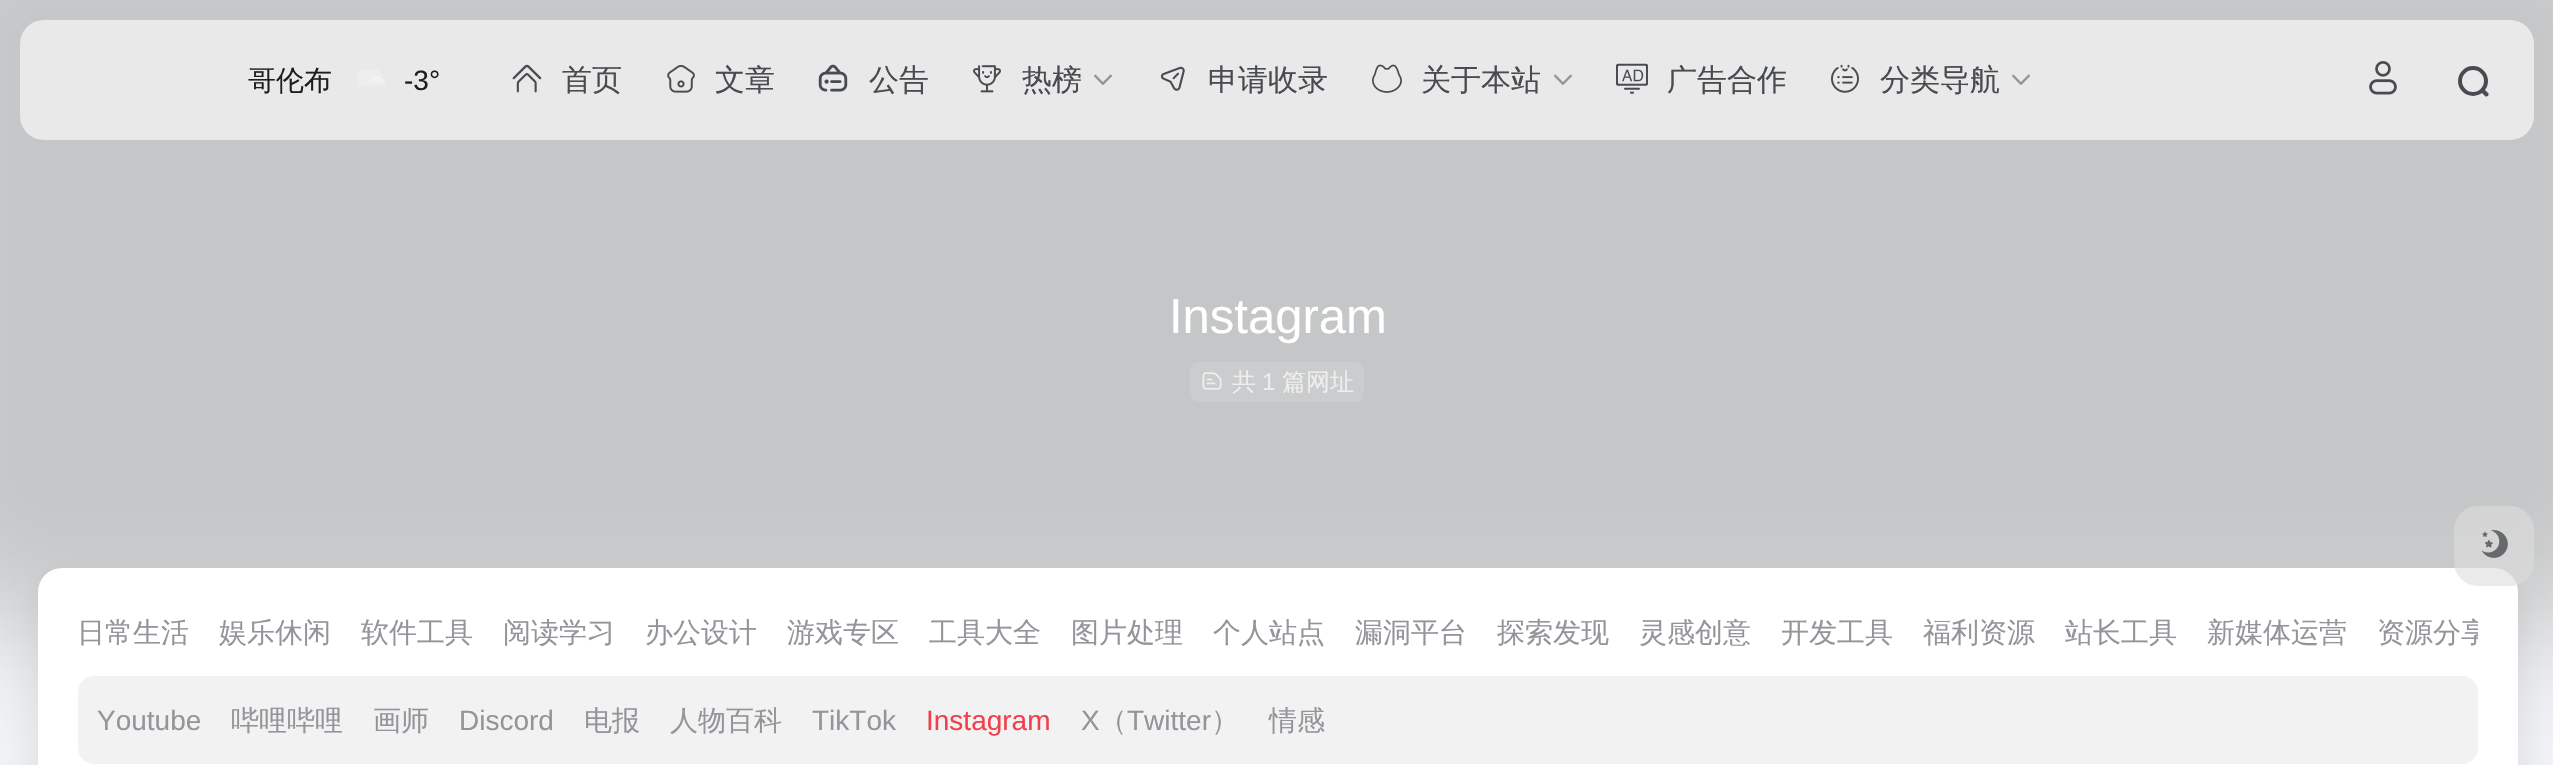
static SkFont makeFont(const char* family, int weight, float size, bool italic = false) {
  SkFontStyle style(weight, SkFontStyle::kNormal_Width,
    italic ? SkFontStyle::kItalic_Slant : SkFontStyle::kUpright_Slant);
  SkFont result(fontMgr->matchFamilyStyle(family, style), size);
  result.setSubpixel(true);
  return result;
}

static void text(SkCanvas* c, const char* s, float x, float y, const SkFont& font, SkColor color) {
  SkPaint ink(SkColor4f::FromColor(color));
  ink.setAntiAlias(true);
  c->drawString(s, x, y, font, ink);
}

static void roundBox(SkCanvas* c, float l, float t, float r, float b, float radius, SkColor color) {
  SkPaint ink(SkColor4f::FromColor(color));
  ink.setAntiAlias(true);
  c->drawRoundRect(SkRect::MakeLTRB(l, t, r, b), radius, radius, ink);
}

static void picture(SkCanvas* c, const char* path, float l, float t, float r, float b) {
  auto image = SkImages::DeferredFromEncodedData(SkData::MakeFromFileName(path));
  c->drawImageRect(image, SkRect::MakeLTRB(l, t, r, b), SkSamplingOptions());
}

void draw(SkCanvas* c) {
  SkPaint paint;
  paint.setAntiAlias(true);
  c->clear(0xfff2f4f7);
  paint.setColor(0xffc5c6c7);
  paint.setMaskFilter(SkMaskFilter::MakeBlur(kNormal_SkBlurStyle, 60));
  c->drawRect(SkRect::MakeLTRB(-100, -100, 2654, 618), paint);
  paint.setMaskFilter(nullptr);
  roundBox(c, 20, 20, 2534, 140, 24, 0xffe9e9ea);
  SkFont face1 = makeFont("WenQuanYi Zen Hei", 500, 28);
  text(c, "哥伦布", 248, 90, face1, 0xff1e1e1e);
  picture(c, "img_01.png", 357, 69, 385, 86);
  SkFont face2 = makeFont("Liberation Sans", 400, 28);
  text(c, "-3°", 404, 90, face2, 0xff1e1e1e);
  picture(c, "img_02.png", 512, 64, 542, 93);
  SkFont face3 = makeFont("WenQuanYi Zen Hei", 500, 30);
  text(c, "首页", 562, 90, face3, 0xff484b4f);
  picture(c, "img_03.png", 667, 65, 695, 93);
  text(c, "文章", 715, 90, face3, 0xff484b4f);
  picture(c, "img_04.png", 818, 64, 848, 92);
  text(c, "公告", 869, 90, face3, 0xff484b4f);
  picture(c, "img_05.png", 973, 65, 1001, 93);
  text(c, "热榜", 1022, 90, face3, 0xff484b4f);
  picture(c, "img_06.png", 1094, 74, 1112, 85);
  picture(c, "img_07.png", 1160, 66, 1185, 91);
  text(c, "申请收录", 1208, 90, face3, 0xff484b4f);
  picture(c, "img_08.png", 1372, 64, 1402, 93);
  text(c, "关于本站", 1421, 90, face3, 0xff484b4f);
  picture(c, "img_06.png", 1554, 74, 1572, 85);
  picture(c, "img_09.png", 1616, 63, 1648, 94);
  text(c, "广告合作", 1667, 90, face3, 0xff484b4f);
  picture(c, "img_10.png", 1831, 64, 1859, 93);
  text(c, "分类导航", 1880, 90, face3, 0xff484b4f);
  picture(c, "img_06.png", 2012, 74, 2030, 85);
  picture(c, "img_11.png", 2369, 61, 2397, 95);
  paint.setStyle(SkPaint::kStroke_Style);
  paint.setStrokeWidth(4);
  paint.setColor(0xff484b4f);
  c->drawCircle(2473, 81, 13, paint);
  paint.setStyle(SkPaint::kFill_Style);
  c->drawPath(SkPathBuilder().moveTo(2485, 90).lineTo(2488.5f, 93.5f).cubicTo(2489, 95.5f, 2487.5f, 97, 2485.5f, 96.5f).lineTo(2481.5f, 92.5f).cubicTo(2481, 90.5f, 2483.5f, 88.5f, 2485, 90).close().detach(), paint);
  SkFont face4 = makeFont("Liberation Sans", 400, 49);
  text(c, "Instagram", 1169, 333, face4, 0xffffffff);
  roundBox(c, 1190, 362, 1364, 402, 8, 0xffcbcccd);
  picture(c, "img_12.png", 1202, 372, 1222, 390);
  SkFont face5 = makeFont("WenQuanYi Zen Hei", 500, 24);
  text(c, "共", 1232, 390, face5, 0xffeeeeee);
  SkFont face6 = makeFont("Liberation Sans", 400, 24);
  text(c, "1", 1262, 390, face6, 0xffeeeeee);
  text(c, "篇网址", 1282, 390, face5, 0xffeeeeee);
  paint.setColor(0x1a000000);
  paint.setMaskFilter(SkMaskFilter::MakeBlur(kNormal_SkBlurStyle, 20));
  c->drawRoundRect(SkRect::MakeLTRB(38, 578, 2518, 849), 24, 24, paint);
  paint.setMaskFilter(nullptr);
  roundBox(c, 38, 568, 2518, 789, 24, 0xffffffff);
  roundBox(c, 2454, 506, 2534, 586, 24, 0x99dcdcdc);
  picture(c, "img_13.png", 2481, 530, 2508, 558);
  text(c, "日常生活", 77, 642, face1, 0xff93959a);
  text(c, "娱乐休闲", 219, 642, face1, 0xff93959a);
  text(c, "软件工具", 361, 642, face1, 0xff93959a);
  text(c, "阅读学习", 503, 642, face1, 0xff93959a);
  text(c, "办公设计", 645, 642, face1, 0xff93959a);
  text(c, "游戏专区", 787, 642, face1, 0xff93959a);
  text(c, "工具大全", 929, 642, face1, 0xff93959a);
  text(c, "图片处理", 1071, 642, face1, 0xff93959a);
  text(c, "个人站点", 1213, 642, face1, 0xff93959a);
  text(c, "漏洞平台", 1355, 642, face1, 0xff93959a);
  text(c, "探索发现", 1497, 642, face1, 0xff93959a);
  text(c, "灵感创意", 1639, 642, face1, 0xff93959a);
  text(c, "开发工具", 1781, 642, face1, 0xff93959a);
  text(c, "福利资源", 1923, 642, face1, 0xff93959a);
  text(c, "站长工具", 2065, 642, face1, 0xff93959a);
  text(c, "新媒体运营", 2207, 642, face1, 0xff93959a);
  c->save();
  c->clipRect(SkRect::MakeLTRB(78, 608, 2478, 656));
  text(c, "资源分享", 2377, 642, face1, 0xff93959a);
  c->restore();
  roundBox(c, 78, 676, 2478, 764, 16, 0xfff2f2f2);
  text(c, "Youtube", 97, 730, face2, 0xff93959a);
  text(c, "哔哩哔哩", 231, 730, face1, 0xff93959a);
  text(c, "画师", 373, 730, face1, 0xff93959a);
  text(c, "Discord", 459, 730, face2, 0xff93959a);
  text(c, "电报", 584, 730, face1, 0xff93959a);
  text(c, "人物百科", 670, 730, face1, 0xff93959a);
  text(c, "TikTok", 812, 730, face2, 0xff93959a);
  text(c, "Instagram", 926, 730, face2, 0xfff1404b);
  text(c, "X", 1081, 730, face2, 0xff93959a);
  text(c, "（", 1099, 730, face1, 0xff93959a);
  text(c, "Twitter", 1127, 730, face2, 0xff93959a);
  text(c, "）", 1211, 730, face1, 0xff93959a);
  text(c, "情感", 1269, 730, face1, 0xff93959a);
}
